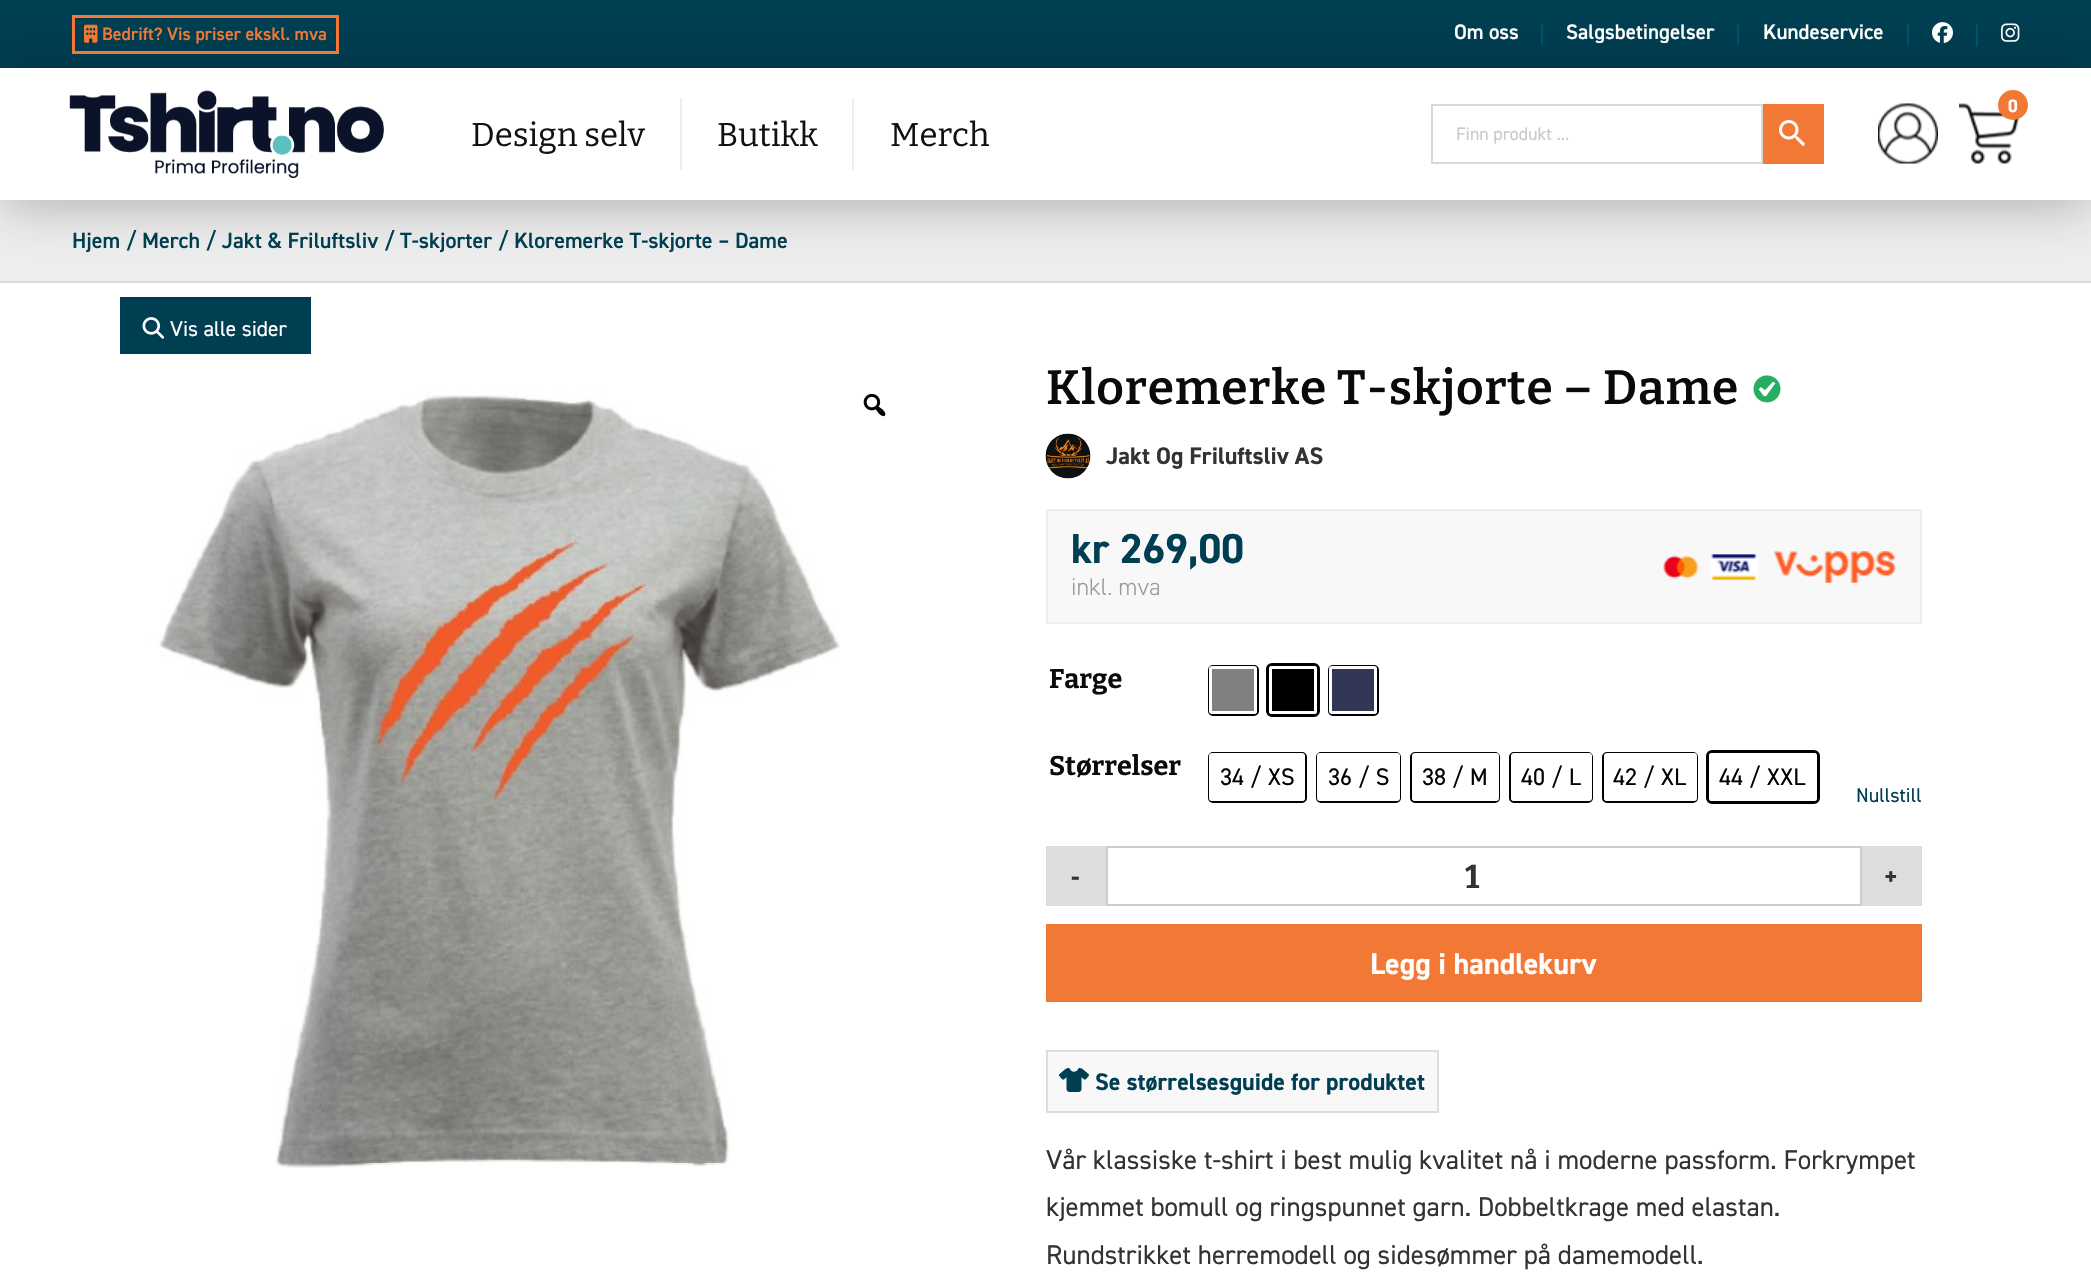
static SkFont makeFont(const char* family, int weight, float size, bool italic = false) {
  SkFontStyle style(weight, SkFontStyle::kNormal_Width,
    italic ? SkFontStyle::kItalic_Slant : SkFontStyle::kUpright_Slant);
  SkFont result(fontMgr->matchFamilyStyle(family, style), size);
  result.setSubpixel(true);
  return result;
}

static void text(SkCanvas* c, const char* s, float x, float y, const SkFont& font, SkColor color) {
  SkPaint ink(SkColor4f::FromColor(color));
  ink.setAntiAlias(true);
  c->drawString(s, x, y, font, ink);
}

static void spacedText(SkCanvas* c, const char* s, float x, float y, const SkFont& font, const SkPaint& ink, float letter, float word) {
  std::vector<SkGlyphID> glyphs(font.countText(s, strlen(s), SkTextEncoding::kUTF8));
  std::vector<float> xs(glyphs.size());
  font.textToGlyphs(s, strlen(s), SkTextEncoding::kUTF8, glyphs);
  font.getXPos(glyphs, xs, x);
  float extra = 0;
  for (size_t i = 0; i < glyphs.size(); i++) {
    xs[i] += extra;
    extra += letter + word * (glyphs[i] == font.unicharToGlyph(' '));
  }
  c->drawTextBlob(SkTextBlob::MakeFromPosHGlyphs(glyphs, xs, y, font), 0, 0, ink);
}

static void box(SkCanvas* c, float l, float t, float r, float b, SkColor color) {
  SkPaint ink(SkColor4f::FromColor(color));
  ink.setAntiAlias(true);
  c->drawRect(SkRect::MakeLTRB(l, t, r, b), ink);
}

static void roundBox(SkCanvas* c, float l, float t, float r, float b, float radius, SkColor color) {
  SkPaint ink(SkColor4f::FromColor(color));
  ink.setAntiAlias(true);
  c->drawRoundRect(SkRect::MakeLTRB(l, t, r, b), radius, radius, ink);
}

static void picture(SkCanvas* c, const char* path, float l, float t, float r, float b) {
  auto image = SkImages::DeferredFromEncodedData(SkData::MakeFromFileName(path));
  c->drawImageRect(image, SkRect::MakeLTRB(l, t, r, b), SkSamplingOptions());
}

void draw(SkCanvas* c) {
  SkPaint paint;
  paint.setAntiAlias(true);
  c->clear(0xffffffff);
  box(c, 0, 0, 2091, 68, 0xff003e51);
  box(c, 0, 200, 2091, 281, 0xffeeeeee);
  box(c, 0, 281, 2091, 283, 0xffdddddd);
  c->save();
  c->clipPath(SkPathBuilder(SkPathFillType::kEvenOdd).moveTo(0, 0).lineTo(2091, 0).lineTo(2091, 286).lineTo(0, 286).close().moveTo(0, 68).lineTo(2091, 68).lineTo(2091, 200).lineTo(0, 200).close().detach(), true);
  paint.setColor(0x40000000);
  paint.setMaskFilter(SkMaskFilter::MakeBlur(kNormal_SkBlurStyle, 26));
  c->drawRect(SkRect::MakeLTRB(0, 75, 2091, 207), paint);
  paint.setMaskFilter(nullptr);
  c->restore();
  paint.setStyle(SkPaint::kStroke_Style);
  paint.setStrokeWidth(3);
  paint.setColor(0xfff27935);
  c->drawRect(SkRect::MakeLTRB(73.5f, 16.5f, 337.5f, 52.5f), paint);
  picture(c, "img_01.png", 84, 24, 98, 43);
  SkFont face1 = makeFont("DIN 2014", 600, 18);
  text(c, "Bedrift? Vis priser ekskl. mva", 102, 40, face1, 0xfff27935);
  SkFont face2 = makeFont("DIN 2014", 600, 21);
  text(c, "Om oss", 1454, 39, face2, 0xfffefefe);
  box(c, 1541, 23, 1543, 45, 0xff00526b);
  text(c, "Salgsbetingelser", 1566, 39, face2, 0xfffefefe);
  box(c, 1737, 23, 1739, 45, 0xff00526b);
  text(c, "Kundeservice", 1763, 39, face2, 0xfffefefe);
  box(c, 1907, 23, 1909, 45, 0xff00526b);
  picture(c, "img_02.png", 1932, 22, 1953, 43);
  box(c, 1976, 24, 1978, 47, 0xff00526b);
  picture(c, "img_03.png", 2001, 23, 2020, 42);
  picture(c, "img_04.png", 69, 90, 384, 179);
  SkFont face3 = makeFont("Bitter", 400, 33);
  text(c, "Design selv", 471, 146, face3, 0xff111111);
  box(c, 680, 98, 682, 170, 0xffeeeeee);
  text(c, "Butikk", 717, 146, face3, 0xff111111);
  box(c, 852, 98, 854, 170, 0xffeeeeee);
  text(c, "Merch", 890, 146, face3, 0xff111111);
  paint.setStrokeWidth(2);
  paint.setColor(0xffd8d8d8);
  c->drawRect(SkRect::MakeLTRB(1432, 105, 1762, 163), paint);
  SkFont face4 = makeFont("DIN 2014", 400, 18);
  text(c, "Finn produkt ...", 1456, 140, face4, 0xffcacaca);
  box(c, 1763, 104, 1824, 164, 0xfff27935);
  picture(c, "img_05.png", 1779, 120, 1806, 147);
  picture(c, "img_06.png", 1878, 103, 1938, 164);
  picture(c, "img_07.png", 1959, 103, 2019, 164);
  paint.setStyle(SkPaint::kFill_Style);
  paint.setColor(0xfff27935);
  c->drawCircle(2013, 105, 15, paint);
  SkFont face5 = makeFont("DIN 2014", 700, 18);
  text(c, "0", 2008, 112, face5, 0xfffefefe);
  SkFont face6 = makeFont("DIN 2014", 600, 22.1f);
  text(c, "Hjem / Merch / Jakt & Friluftsliv / T-skjorter / Kloremerke T-skjorte – Dame", 72, 248, face6, 0xff003e51);
  box(c, 120, 297, 311, 354, 0xff003e51);
  picture(c, "img_08.png", 142, 317, 165, 339);
  SkFont face7 = makeFont("DIN 2014", 400, 21.5f);
  text(c, "Vis alle sider", 170, 336, face7, 0xfffefefe);
  picture(c, "img_09.png", 120, 354, 840, 1168);
  picture(c, "img_10.png", 863, 393, 886, 417);
  SkFont face8 = makeFont("Bitter", 600, 48);
  paint.setColor(0xff0a0a0a);
  spacedText(c, "Kloremerke T-skjorte – Dame", 1046, 404, face8, paint, 0.75f, 0);
  picture(c, "img_11.png", 1753, 375, 1781, 403);
  picture(c, "img_12.png", 1045, 433, 1091, 479);
  SkFont face9 = makeFont("DIN 2014", 700, 24);
  text(c, "Jakt Og Friluftsliv AS", 1106, 464, face9, 0xff333333);
  paint.setColor(0xfff8f8f8);
  c->drawRect(SkRect::MakeLTRB(1047, 510, 1921, 623), paint);
  paint.setStyle(SkPaint::kStroke_Style);
  paint.setColor(0xffeeeeee);
  c->drawRect(SkRect::MakeLTRB(1047, 510, 1921, 623), paint);
  SkFont face10 = makeFont("DIN 2014", 700, 42);
  text(c, "kr 269,00", 1071, 563, face10, 0xff003e51);
  picture(c, "img_13.png", 1663, 551, 1896, 583);
  SkFont face11 = makeFont("DIN 2014", 300, 24);
  text(c, "inkl. mva", 1071, 595, face11, 0xff999999);
  SkFont face12 = makeFont("Bitter", 700, 27);
  text(c, "Farge", 1049, 688, face12, 0xff0a0a0a);
  paint.setColor(0xff000000);
  c->drawRoundRect(SkRect::MakeLTRB(1209, 666, 1258, 715), 4, 4, paint);
  roundBox(c, 1209, 666, 1257, 714, 3, 0xffffffff);
  box(c, 1212, 669, 1254, 711, 0xff808082);
  paint.setStrokeWidth(3);
  c->drawRoundRect(SkRect::MakeLTRB(1267.5f, 664.5f, 1318.5f, 715.5f), 4.5f, 4.5f, paint);
  roundBox(c, 1269, 666, 1317, 714, 3, 0xffffffff);
  box(c, 1272, 669, 1314, 711, 0xff000000);
  paint.setStrokeWidth(2);
  c->drawRoundRect(SkRect::MakeLTRB(1329, 666, 1378, 715), 4, 4, paint);
  roundBox(c, 1329, 666, 1377, 714, 3, 0xffffffff);
  box(c, 1332, 669, 1374, 711, 0xff323755);
  text(c, "Størrelser", 1049, 775, face12, 0xff0a0a0a);
  c->drawRoundRect(SkRect::MakeLTRB(1209, 753, 1306, 802), 4, 4, paint);
  roundBox(c, 1209, 753, 1305, 801, 3, 0xffffffff);
  SkFont face13 = makeFont("DIN 2014", 400, 24);
  text(c, "34 / XS", 1220, 785, face13, 0xff000000);
  c->drawRoundRect(SkRect::MakeLTRB(1317, 753, 1400, 802), 4, 4, paint);
  roundBox(c, 1317, 753, 1400, 801, 3, 0xffffffff);
  text(c, "36 / S", 1328, 785, face13, 0xff000000);
  c->drawRoundRect(SkRect::MakeLTRB(1411, 753, 1499, 802), 4, 4, paint);
  roundBox(c, 1412, 753, 1499, 801, 3, 0xffffffff);
  text(c, "38 / M", 1422, 785, face13, 0xff000000);
  c->drawRoundRect(SkRect::MakeLTRB(1510, 753, 1592, 802), 4, 4, paint);
  roundBox(c, 1511, 753, 1592, 801, 3, 0xffffffff);
  text(c, "40 / L", 1521, 785, face13, 0xff000000);
  c->drawRoundRect(SkRect::MakeLTRB(1603, 753, 1697, 802), 4, 4, paint);
  roundBox(c, 1604, 753, 1697, 801, 3, 0xffffffff);
  text(c, "42 / XL", 1613, 785, face13, 0xff000000);
  paint.setStrokeWidth(3);
  c->drawRoundRect(SkRect::MakeLTRB(1707.5f, 751.5f, 1818.5f, 802.5f), 4.5f, 4.5f, paint);
  roundBox(c, 1709, 753, 1817, 801, 3, 0xffffffff);
  text(c, "44 / XXL", 1719, 785, face13, 0xff000000);
  SkFont face14 = makeFont("DIN 2014", 400, 20);
  text(c, "Nullstill", 1856, 802, face14, 0xff003e51);
  box(c, 1046, 846, 1106, 906, 0xffdddddd);
  SkFont face15 = makeFont("DIN 2014", 700, 27);
  text(c, "-", 1071, 886, face15, 0xff333333);
  paint.setStrokeWidth(2);
  paint.setColor(0xffcccccc);
  c->drawRect(SkRect::MakeLTRB(1107, 847, 1861, 905), paint);
  SkFont face16 = makeFont("Bitter", 700, 33);
  text(c, "1", 1465, 888, face16, 0xff333333);
  box(c, 1862, 846, 1922, 906, 0xffdddddd);
  text(c, "+", 1884, 886, face15, 0xff333333);
  box(c, 1046, 924, 1922, 1002, 0xfff27935);
  SkFont face17 = makeFont("DIN 2014", 700, 30);
  text(c, "Legg i handlekurv", 1370, 974, face17, 0xfffefefe);
  paint.setStyle(SkPaint::kFill_Style);
  paint.setColor(0xfff8f8f8);
  c->drawRect(SkRect::MakeLTRB(1047, 1051, 1438, 1112), paint);
  paint.setStyle(SkPaint::kStroke_Style);
  paint.setColor(0xffdddddd);
  c->drawRect(SkRect::MakeLTRB(1047, 1051, 1438, 1112), paint);
  picture(c, "img_14.png", 1059, 1068, 1089, 1092);
  text(c, "Se størrelsesguide for produktet", 1095, 1090, face9, 0xff003e51);
  SkFont face18 = makeFont("DIN 2014", 400, 27);
  text(c, "Vår klassiske t-shirt i best mulig kvalitet nå i moderne passform. Forkrympet", 1046, 1169, face18, 0xff333333);
  text(c, "kjemmet bomull og ringspunnet garn. Dobbeltkrage med elastan.", 1046, 1216, face18, 0xff333333);
  text(c, "Rundstrikket herremodell og sidesømmer på damemodell.", 1046, 1264, face18, 0xff333333);
}
